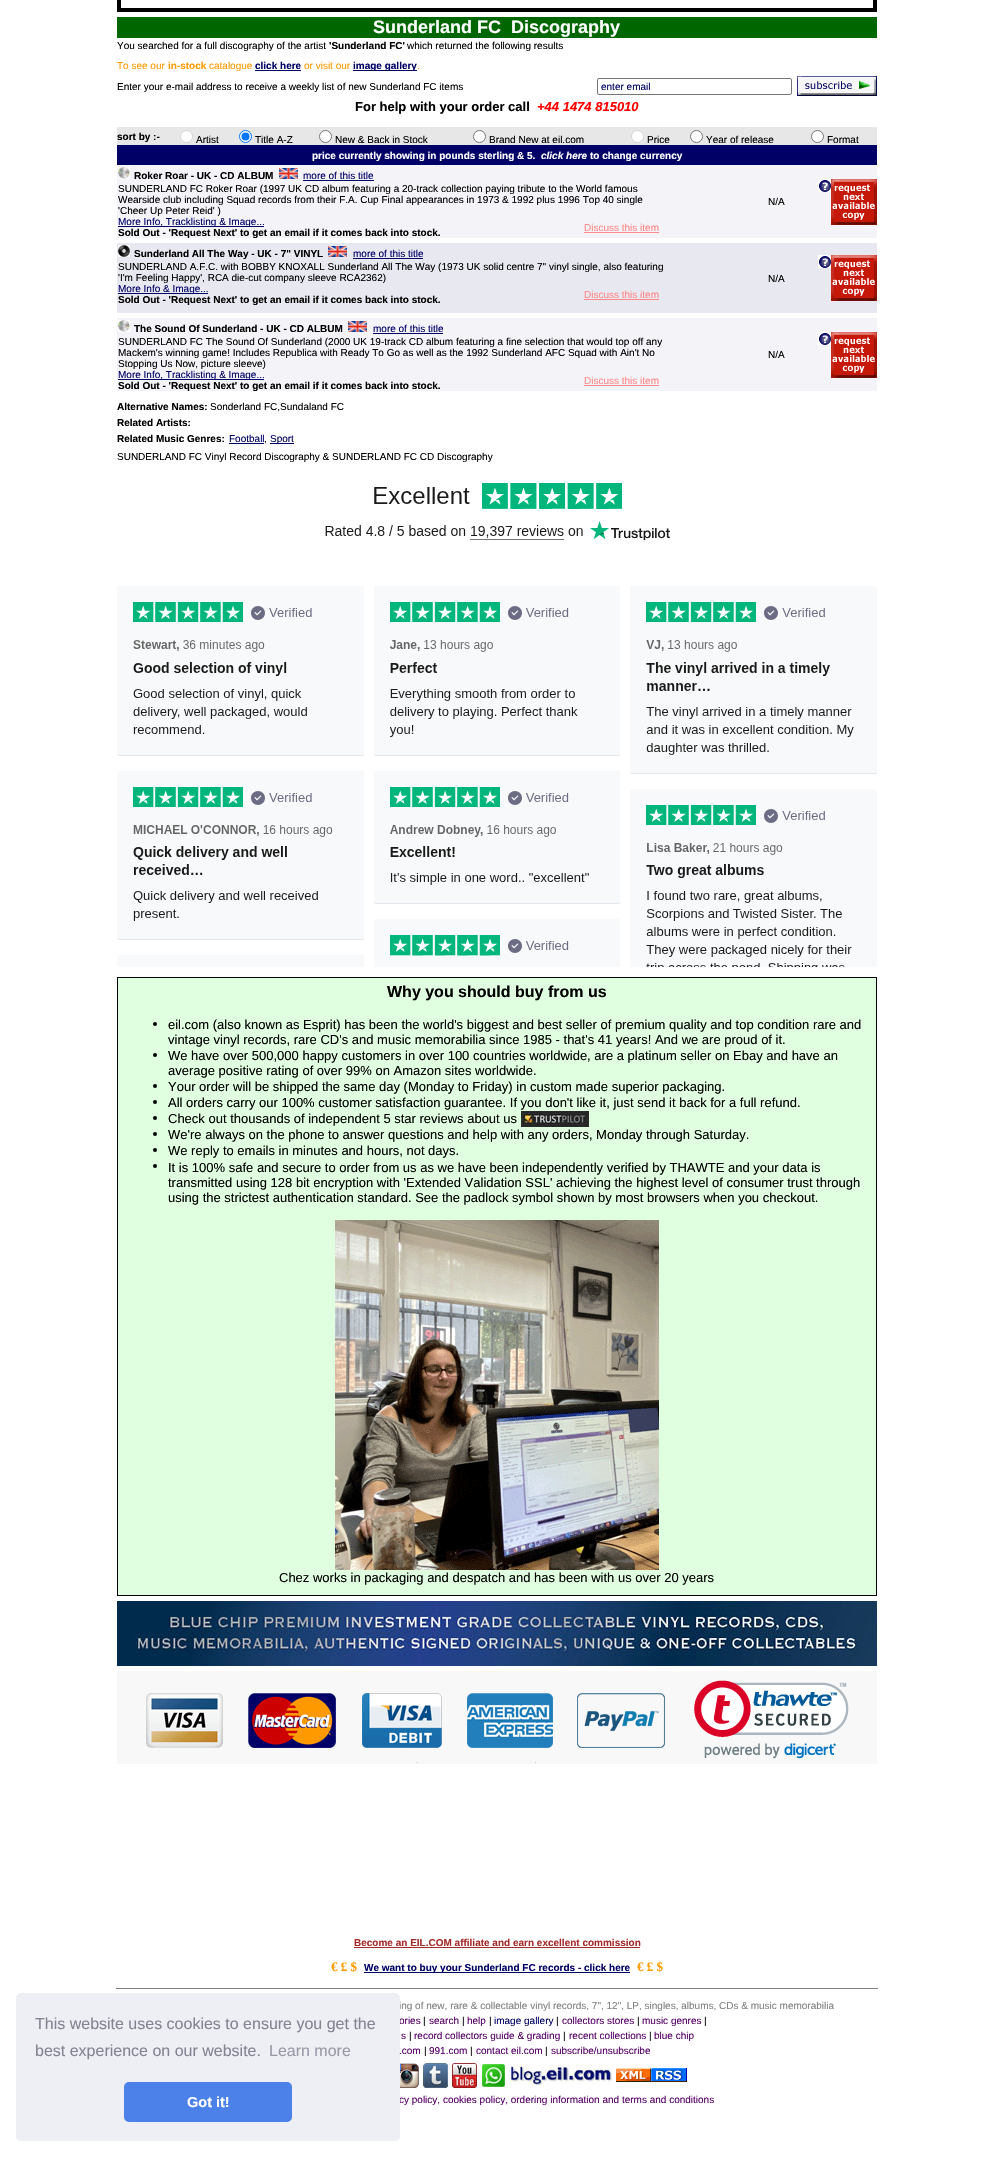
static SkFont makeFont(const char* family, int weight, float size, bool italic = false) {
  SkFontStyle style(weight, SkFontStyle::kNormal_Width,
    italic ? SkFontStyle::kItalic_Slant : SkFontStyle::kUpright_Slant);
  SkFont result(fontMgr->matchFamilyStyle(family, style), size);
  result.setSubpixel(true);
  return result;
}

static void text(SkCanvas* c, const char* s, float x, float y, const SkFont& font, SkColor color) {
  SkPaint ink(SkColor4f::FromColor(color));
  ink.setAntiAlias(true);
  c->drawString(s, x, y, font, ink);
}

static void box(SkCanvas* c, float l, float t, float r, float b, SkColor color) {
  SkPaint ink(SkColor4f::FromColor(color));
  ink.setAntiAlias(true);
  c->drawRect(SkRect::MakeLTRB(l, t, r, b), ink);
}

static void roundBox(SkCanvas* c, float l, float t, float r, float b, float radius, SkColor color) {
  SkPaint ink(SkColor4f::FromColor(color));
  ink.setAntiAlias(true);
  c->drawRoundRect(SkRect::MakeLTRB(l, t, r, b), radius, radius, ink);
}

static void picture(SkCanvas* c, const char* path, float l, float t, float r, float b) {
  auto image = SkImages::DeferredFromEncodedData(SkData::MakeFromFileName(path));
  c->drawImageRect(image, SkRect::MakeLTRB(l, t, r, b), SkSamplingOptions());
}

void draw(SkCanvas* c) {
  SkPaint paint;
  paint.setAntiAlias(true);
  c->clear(0xffffffff);
  paint.setStyle(SkPaint::kStroke_Style);
  paint.setStrokeWidth(4);
  paint.setColor(0xff000000);
  c->drawRect(SkRect::MakeLTRB(119, -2, 875, 10), paint);
  box(c, 117, 17, 877, 38, 0xff006600);
  SkFont face1 = makeFont("Liberation Sans", 700, 18);
  text(c, "Sunderland FC  Discography", 373, 33, face1, 0xffffffff);
  SkFont face2 = makeFont("Liberation Sans", 400, 10);
  text(c, "You searched for a full discography of the artist", 117, 49, face2, 0xff000000);
  SkFont face3 = makeFont("Liberation Sans", 700, 10);
  text(c, "'Sunderland FC'", 329, 49, face3, 0xff000000);
  text(c, "which returned the following results", 407, 49, face2, 0xff000000);
  text(c, "To see our", 117, 69, face2, 0xffff9a00);
  text(c, "in-stock", 168, 69, face3, 0xffff9a00);
  text(c, "catalogue", 209, 69, face2, 0xffff9a00);
  text(c, "click here", 255, 69, face3, 0xff000066);
  box(c, 255, 70, 301, 71, 0xff000066);
  text(c, "or visit our", 304, 69, face2, 0xffff9a00);
  box(c, 353, 70, 417, 71, 0xff000066);
  text(c, "image gallery", 353, 69, face3, 0xff000066);
  text(c, ".", 417, 69, face2, 0xffff9a00);
  text(c, "Enter your e-mail address to receive a weekly list of new Sunderland FC items", 117, 90, face2, 0xff000000);
  paint.setStrokeWidth(1);
  paint.setColor(0xff767676);
  c->drawRoundRect(SkRect::MakeLTRB(597.5f, 78.5f, 791.5f, 94.5f), 1.5f, 1.5f, paint);
  text(c, "enter email", 601, 90, face2, 0xff000066);
  picture(c, "img_01.png", 797, 76, 877, 96);
  SkFont face4 = makeFont("Liberation Sans", 700, 13);
  text(c, "For help with your order call", 355, 111, face4, 0xff000000);
  SkFont face5 = makeFont("Liberation Sans", 700, 13, true);
  text(c, "+44 1474 815010", 537, 111, face5, 0xffff0000);
  box(c, 117, 127, 877, 145, 0xffe7e7e7);
  text(c, "sort by :-", 117, 140, face3, 0xff000000);
  paint.setStyle(SkPaint::kFill_Style);
  paint.setColor(0xffffffff);
  c->drawCircle(186.5f, 136.5f, 6.5f, paint);
  paint.setStyle(SkPaint::kStroke_Style);
  paint.setColor(0x4d767676);
  c->drawCircle(186.5f, 136.5f, 6, paint);
  text(c, "Artist", 196, 143, face2, 0xff000000);
  paint.setStyle(SkPaint::kFill_Style);
  paint.setColor(0xffffffff);
  c->drawCircle(245.5f, 136.5f, 6, paint);
  paint.setStyle(SkPaint::kStroke_Style);
  paint.setColor(0xff0075ff);
  c->drawCircle(245.5f, 136.5f, 6, paint);
  paint.setStyle(SkPaint::kFill_Style);
  c->drawCircle(245.5f, 136.5f, 4, paint);
  text(c, "Title A-Z", 255, 143, face2, 0xff000000);
  paint.setColor(0xffffffff);
  c->drawCircle(325.5f, 136.5f, 6, paint);
  paint.setStyle(SkPaint::kStroke_Style);
  paint.setColor(0xff767676);
  c->drawCircle(325.5f, 136.5f, 6, paint);
  text(c, "New & Back in Stock", 335, 143, face2, 0xff000000);
  paint.setStyle(SkPaint::kFill_Style);
  paint.setColor(0xffffffff);
  c->drawCircle(479.5f, 136.5f, 6, paint);
  paint.setStyle(SkPaint::kStroke_Style);
  paint.setColor(0xff767676);
  c->drawCircle(479.5f, 136.5f, 6, paint);
  text(c, "Brand New at eil.com", 489, 143, face2, 0xff000000);
  paint.setStyle(SkPaint::kFill_Style);
  paint.setColor(0xffffffff);
  c->drawCircle(637.5f, 136.5f, 6.5f, paint);
  paint.setStyle(SkPaint::kStroke_Style);
  paint.setColor(0x4d767676);
  c->drawCircle(637.5f, 136.5f, 6, paint);
  text(c, "Price", 647, 143, face2, 0xff000000);
  paint.setStyle(SkPaint::kFill_Style);
  paint.setColor(0xffffffff);
  c->drawCircle(696.5f, 136.5f, 6, paint);
  paint.setStyle(SkPaint::kStroke_Style);
  paint.setColor(0xff767676);
  c->drawCircle(696.5f, 136.5f, 6, paint);
  text(c, "Year of release", 706, 143, face2, 0xff000000);
  paint.setStyle(SkPaint::kFill_Style);
  paint.setColor(0xffffffff);
  c->drawCircle(817.5f, 136.5f, 6, paint);
  paint.setStyle(SkPaint::kStroke_Style);
  paint.setColor(0xff767676);
  c->drawCircle(817.5f, 136.5f, 6, paint);
  text(c, "Format", 827, 143, face2, 0xff000000);
  box(c, 117, 145, 877, 165, 0xff000066);
  text(c, "price currently showing in pounds sterling & 5.", 312, 159, face3, 0xffffffff);
  SkFont face6 = makeFont("Liberation Sans", 700, 10, true);
  text(c, "click here", 541, 159, face6, 0xffffffff);
  text(c, "to change currency", 590, 159, face3, 0xffffffff);
  box(c, 117, 165, 877, 238, 0xfff3f3f8);
  picture(c, "img_02.png", 118, 167, 130, 179);
  text(c, "Roker Roar - UK - CD ALBUM", 134, 179, face3, 0xff000000);
  picture(c, "img_03.png", 279, 168, 298, 179);
  text(c, "more of this title", 303, 179, face2, 0xff000066);
  box(c, 303, 180, 374, 181, 0xff000066);
  text(c, "SUNDERLAND FC Roker Roar (1997 UK CD album featuring a 20-track collection paying tribute to the World famous", 118, 192, face2, 0xff000000);
  text(c, "Wearside club including Squad records from their F.A. Cup Final appearances in 1973 & 1992 plus 1996 Top 40 single", 118, 203, face2, 0xff000000);
  text(c, "'Cheer Up Peter Reid' )", 118, 214, face2, 0xff000000);
  box(c, 118, 226, 264, 227, 0xff000066);
  text(c, "More Info, Tracklisting & Image...", 118, 225, face2, 0xff000066);
  text(c, "Sold Out - 'Request Next' to get an email if it comes back into stock.", 118, 236, face3, 0xff000000);
  text(c, "Discuss this item", 584, 231, face2, 0xffff8888);
  box(c, 584, 232, 659, 233, 0xffff8888);
  text(c, "N/A", 768, 205, face2, 0xff000000);
  picture(c, "img_04.png", 818, 179, 831, 192);
  picture(c, "img_05.png", 831, 179, 877, 225);
  box(c, 117, 243, 877, 313, 0xffe8e8f0);
  picture(c, "img_06.png", 118, 245, 130, 257);
  text(c, "Sunderland All The Way - UK - 7\" VINYL", 134, 257, face3, 0xff000000);
  picture(c, "img_03.png", 328, 246, 347, 257);
  text(c, "more of this title", 353, 257, face2, 0xff000066);
  box(c, 353, 258, 423, 259, 0xff000066);
  text(c, "SUNDERLAND A.F.C. with BOBBY KNOXALL Sunderland All The Way (1973 UK solid centre 7\" vinyl single, also featuring", 118, 270, face2, 0xff000000);
  text(c, "'I'm Feeling Happy', RCA die-cut company sleeve RCA2362)", 118, 281, face2, 0xff000000);
  box(c, 118, 293, 208, 294, 0xff000066);
  text(c, "More Info & Image...", 118, 292, face2, 0xff000066);
  text(c, "Sold Out - 'Request Next' to get an email if it comes back into stock.", 118, 303, face3, 0xff000000);
  text(c, "Discuss this item", 584, 298, face2, 0xffff8888);
  box(c, 584, 299, 659, 300, 0xffff8888);
  text(c, "N/A", 768, 282, face2, 0xff000000);
  picture(c, "img_07.png", 818, 255, 831, 268);
  picture(c, "img_05.png", 831, 255, 877, 301);
  box(c, 117, 318, 877, 391, 0xfff3f3f8);
  picture(c, "img_02.png", 118, 320, 130, 332);
  text(c, "The Sound Of Sunderland - UK - CD ALBUM", 134, 332, face3, 0xff000000);
  picture(c, "img_08.png", 348, 321, 367, 332);
  text(c, "more of this title", 373, 332, face2, 0xff000066);
  box(c, 373, 333, 443, 334, 0xff000066);
  text(c, "SUNDERLAND FC The Sound Of Sunderland (2000 UK 19-track CD album featuring a fine selection that would top off any", 118, 345, face2, 0xff000000);
  text(c, "Mackem's winning game! Includes Republica with Ready To Go as well as the 1992 Sunderland AFC Squad with Ain't No", 118, 356, face2, 0xff000000);
  text(c, "Stopping Us Now, picture sleeve)", 118, 367, face2, 0xff000000);
  box(c, 118, 379, 264, 380, 0xff000066);
  text(c, "More Info, Tracklisting & Image...", 118, 378, face2, 0xff000066);
  text(c, "Sold Out - 'Request Next' to get an email if it comes back into stock.", 118, 389, face3, 0xff000000);
  text(c, "Discuss this item", 584, 384, face2, 0xffff8888);
  box(c, 584, 385, 659, 386, 0xffff8888);
  text(c, "N/A", 768, 358, face2, 0xff000000);
  picture(c, "img_04.png", 818, 332, 831, 345);
  picture(c, "img_05.png", 831, 332, 877, 378);
  text(c, "Alternative Names:", 117, 410, face3, 0xff000000);
  text(c, "Sonderland FC,Sundaland FC", 210, 410, face2, 0xff000000);
  text(c, "Related Artists:", 117, 426, face3, 0xff000000);
  text(c, "Related Music Genres:", 117, 442, face3, 0xff000000);
  text(c, "Football", 229, 442, face2, 0xff000066);
  box(c, 229, 443, 264, 444, 0xff000066);
  text(c, ",", 264, 442, face2, 0xff000000);
  box(c, 270, 443, 294, 444, 0xff000066);
  text(c, "Sport", 270, 442, face2, 0xff000066);
  text(c, "SUNDERLAND FC Vinyl Record Discography & SUNDERLAND FC CD Discography", 117, 460, face2, 0xff000000);
  picture(c, "img_09.png", 117, 483, 877, 967);
  paint.setStyle(SkPaint::kFill_Style);
  paint.setColor(0xffe0ffe0);
  c->drawRect(SkRect::MakeLTRB(117.5f, 977.5f, 876.5f, 1595.5f), paint);
  paint.setStyle(SkPaint::kStroke_Style);
  paint.setColor(0xff000000);
  c->drawRect(SkRect::MakeLTRB(117.5f, 977.5f, 876.5f, 1595.5f), paint);
  SkFont face7 = makeFont("Liberation Sans", 700, 16);
  text(c, "Why you should buy from us", 387, 997, face7, 0xff000000);
  paint.setStyle(SkPaint::kFill_Style);
  c->drawCircle(155, 1024, 2, paint);
  SkFont face8 = makeFont("Liberation Sans", 400, 13);
  text(c, "eil.com (also known as Esprit) has been the world's biggest and best seller of premium quality and top condition rare and", 168, 1029, face8, 0xff000000);
  text(c, "vintage vinyl records, rare CD's and music memorabilia since 1985 - that's 41 years! And we are proud of it.", 168, 1044, face8, 0xff000000);
  c->drawCircle(155, 1055, 2, paint);
  text(c, "We have over 500,000 happy customers in over 100 countries worldwide, are a platinum seller on Ebay and have an", 168, 1060, face8, 0xff000000);
  text(c, "average positive rating of over 99% on Amazon sites worldwide.", 168, 1075, face8, 0xff000000);
  c->drawCircle(155, 1086, 2, paint);
  text(c, "Your order will be shipped the same day (Monday to Friday) in custom made superior packaging.", 168, 1091, face8, 0xff000000);
  c->drawCircle(155, 1102, 2, paint);
  text(c, "All orders carry our 100% customer satisfaction guarantee. If you don't like it, just send it back for a full refund.", 168, 1107, face8, 0xff000000);
  c->drawCircle(155, 1118, 2, paint);
  text(c, "Check out thousands of independent 5 star reviews about us", 168, 1123, face8, 0xff000000);
  picture(c, "img_10.png", 521, 1111, 589, 1127);
  c->drawCircle(155, 1134, 2, paint);
  text(c, "We're always on the phone to answer questions and help with any orders, Monday through Saturday.", 168, 1139, face8, 0xff000000);
  c->drawCircle(155, 1150, 2, paint);
  text(c, "We reply to emails in minutes and hours, not days.", 168, 1155, face8, 0xff000000);
  c->drawCircle(155, 1166, 2, paint);
  text(c, "It is 100% safe and secure to order from us as we have been independently verified by THAWTE and your data is", 168, 1172, face8, 0xff000000);
  text(c, "transmitted using 128 bit encryption with 'Extended Validation SSL' achieving the highest level of consumer trust through", 168, 1187, face8, 0xff000000);
  text(c, "using the strictest authentication standard. See the padlock symbol shown by most browsers when you checkout.", 168, 1202, face8, 0xff000000);
  picture(c, "img_11.png", 335, 1220, 659, 1570);
  text(c, "Chez works in packaging and despatch and has been with us over 20 years", 279, 1582, face8, 0xff000000);
  picture(c, "img_12.png", 117, 1601, 877, 1666);
  box(c, 117, 1671, 877, 1676, 0xfff8f8f8);
  box(c, 117, 1676, 877, 1764, 0xfff8f8f8);
  picture(c, "img_13.png", 146, 1693, 665, 1763);
  picture(c, "img_14.png", 694, 1680, 849, 1759);
  text(c, "Become an EIL.COM affiliate and earn excellent commission", 354, 1946, face3, 0xffa52a2a);
  box(c, 354, 1947, 640, 1948, 0xffa52a2a);
  SkFont face9 = makeFont("Liberation Serif", 700, 13);
  text(c, "€ £ $", 331, 1971, face9, 0xffff9a00);
  box(c, 364, 1972, 630, 1973, 0xff000066);
  text(c, "We want to buy your Sunderland FC records - click here", 364, 1971, face3, 0xff000066);
  text(c, "€ £ $", 637, 1971, face9, 0xffff9a00);
  text(c, "ing of new, rare & collectable vinyl records, 7\", 12\", LP, singles, albums, CDs & music memorabilia", 399, 2009, face2, 0xff808080);
  text(c, "ories", 399, 2024, face2, 0xff550066);
  text(c, "cy policy, cookies policy, ordering information and terms and conditions", 399, 2103, face2, 0xff550066);
  roundBox(c, 16, 1993, 400, 2141, 5, 0xffedeff5);
  SkFont face10 = makeFont("Liberation Sans", 400, 16);
  text(c, "This website uses cookies to ensure you get the", 35, 2029, face10, 0xff838391);
  text(c, "best experience on our website.", 35, 2056, face10, 0xff838391);
  text(c, "Learn more", 269, 2056, face10, 0xff9899a5);
  roundBox(c, 124, 2082, 292, 2122, 5, 0xff4b81e8);
  SkFont face11 = makeFont("Liberation Sans", 700, 14.5f);
  text(c, "Got it!", 187, 2107, face11, 0xffffffff);
  box(c, 116, 1988, 878, 1989, 0xff808080);
  text(c, "|", 423, 2024, face2, 0xff000000);
  text(c, "search", 429, 2024, face2, 0xff550066);
  text(c, "|", 462, 2024, face2, 0xff000000);
  text(c, "help", 467, 2024, face2, 0xff550066);
  text(c, "|", 489, 2024, face2, 0xff000000);
  text(c, "image gallery", 494, 2024, face2, 0xff000066);
  text(c, "|", 556, 2024, face2, 0xff000000);
  text(c, "collectors stores", 562, 2024, face2, 0xff550066);
  text(c, "|", 637, 2024, face2, 0xff000000);
  text(c, "music genres", 642, 2024, face2, 0xff550066);
  text(c, "|", 704, 2024, face2, 0xff000000);
  text(c, "s", 401, 2039, face2, 0xff550066);
  text(c, "|", 409, 2039, face2, 0xff000000);
  text(c, "record collectors guide & grading", 414, 2039, face2, 0xff550066);
  text(c, "|", 563, 2039, face2, 0xff000000);
  text(c, "recent collections", 569, 2039, face2, 0xff550066);
  text(c, "|", 649, 2039, face2, 0xff000000);
  text(c, "blue chip", 654, 2039, face2, 0xff550066);
  text(c, ".com", 399, 2054, face2, 0xff550066);
  text(c, "|", 424, 2054, face2, 0xff000000);
  text(c, "991.com", 429, 2054, face2, 0xff550066);
  text(c, "|", 470, 2054, face2, 0xff000000);
  text(c, "contact eil.com", 476, 2054, face2, 0xff550066);
  text(c, "|", 545, 2054, face2, 0xff000000);
  text(c, "subscribe/unsubscribe", 551, 2054, face2, 0xff550066);
  picture(c, "img_15.png", 400, 2063, 419, 2088);
  picture(c, "img_16.png", 423, 2063, 448, 2088);
  picture(c, "img_17.png", 452, 2063, 477, 2088);
  picture(c, "img_18.png", 482, 2064, 505, 2087);
  picture(c, "img_19.png", 510, 2065, 612, 2085);
  picture(c, "img_20.png", 616, 2068, 687, 2082);
}
